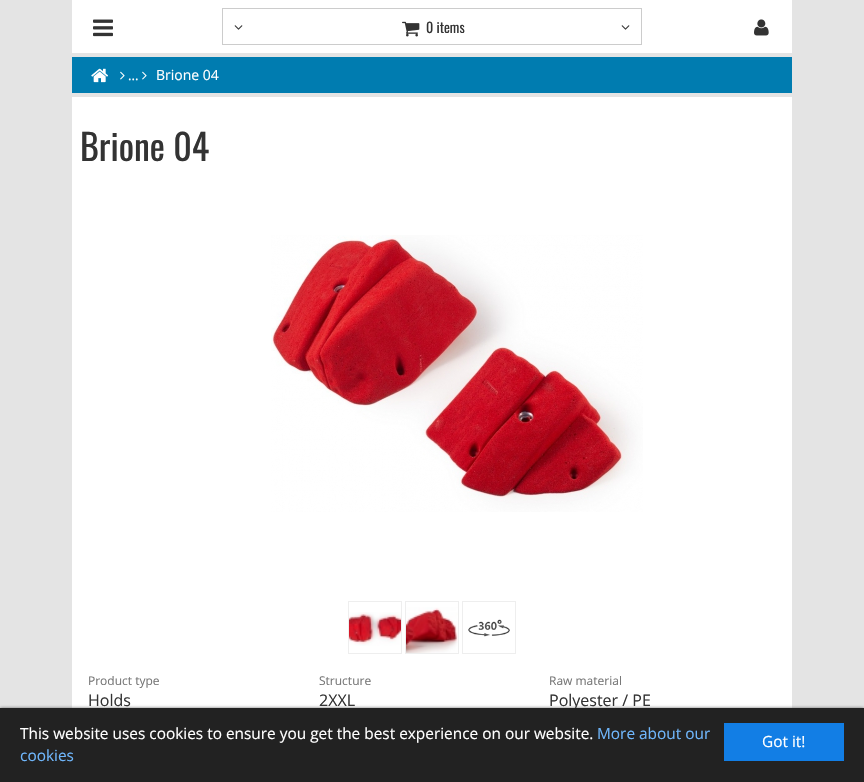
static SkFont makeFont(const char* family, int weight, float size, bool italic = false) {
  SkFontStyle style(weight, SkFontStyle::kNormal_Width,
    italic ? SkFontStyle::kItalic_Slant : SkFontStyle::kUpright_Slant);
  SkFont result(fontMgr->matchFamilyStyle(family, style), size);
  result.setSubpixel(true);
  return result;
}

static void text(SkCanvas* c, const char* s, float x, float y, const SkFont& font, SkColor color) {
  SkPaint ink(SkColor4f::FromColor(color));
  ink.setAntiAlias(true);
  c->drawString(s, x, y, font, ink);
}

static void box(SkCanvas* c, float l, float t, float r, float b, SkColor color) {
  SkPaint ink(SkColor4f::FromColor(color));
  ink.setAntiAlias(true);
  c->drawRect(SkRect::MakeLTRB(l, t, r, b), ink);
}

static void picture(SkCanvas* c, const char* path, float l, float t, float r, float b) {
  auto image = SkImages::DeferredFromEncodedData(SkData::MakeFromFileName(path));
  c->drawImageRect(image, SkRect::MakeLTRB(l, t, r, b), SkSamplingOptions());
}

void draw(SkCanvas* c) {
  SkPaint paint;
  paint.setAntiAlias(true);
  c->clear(0xffe4e4e4);
  box(c, 72, 0, 792, 53, 0xffffffff);
  picture(c, "img_01.png", 93, 19, 113, 37);
  paint.setStyle(SkPaint::kStroke_Style);
  paint.setStrokeWidth(1);
  paint.setColor(0xffcccccc);
  c->drawRect(SkRect::MakeLTRB(222.5f, 8.5f, 641.5f, 44.5f), paint);
  picture(c, "img_02.png", 234, 25, 243, 30);
  picture(c, "img_03.png", 402, 21, 420, 37);
  SkFont face1 = makeFont("Oswald", 400, 14);
  text(c, "0 items", 426, 33, face1, 0xff333333);
  picture(c, "img_02.png", 621, 25, 630, 30);
  picture(c, "img_04.png", 754, 19, 769, 36);
  box(c, 72, 57, 792, 93, 0xff007cb0);
  picture(c, "img_05.png", 91, 68, 108, 83);
  picture(c, "img_06.png", 120, 71, 125, 80);
  SkFont face2 = makeFont("Liberation Serif", 400, 14);
  text(c, "...", 128, 80, face2, 0xffffffff);
  picture(c, "img_06.png", 142, 71, 147, 80);
  SkFont face3 = makeFont("Open Sans", 400, 14);
  text(c, "Brione 04", 156, 80, face3, 0xffffffff);
  box(c, 72, 97, 792, 708, 0xffffffff);
  SkFont face4 = makeFont("Oswald", 400, 36);
  text(c, "Brione 04", 80, 161, face4, 0xff333333);
  picture(c, "img_07.png", 271, 235, 643, 512);
  picture(c, "img_08.png", 349, 612, 401, 646);
  paint.setColor(0xffeeeeee);
  c->drawRect(SkRect::MakeLTRB(348.5f, 601.5f, 401.5f, 653.5f), paint);
  picture(c, "img_09.png", 406, 607, 458, 653);
  c->drawRect(SkRect::MakeLTRB(405.5f, 601.5f, 458.5f, 653.5f), paint);
  picture(c, "img_10.png", 468, 619, 510, 637);
  c->drawRect(SkRect::MakeLTRB(462.5f, 601.5f, 515.5f, 653.5f), paint);
  SkFont face5 = makeFont("Open Sans", 400, 12);
  text(c, "Product type", 88, 685, face5, 0xff777777);
  SkFont face6 = makeFont("Open Sans", 400, 16);
  text(c, "Holds", 88, 706, face6, 0xff333333);
  text(c, "Structure", 319, 685, face5, 0xff777777);
  text(c, "2XXL", 319, 706, face6, 0xff333333);
  text(c, "Raw material", 549, 685, face5, 0xff777777);
  text(c, "Polyester / PE", 549, 706, face6, 0xff333333);
  paint.setStyle(SkPaint::kFill_Style);
  paint.setColor(0xff666666);
  paint.setMaskFilter(SkMaskFilter::MakeBlur(kNormal_SkBlurStyle, 1.5f));
  c->drawRect(SkRect::MakeLTRB(0, 708, 864, 782), paint);
  paint.setMaskFilter(nullptr);
  box(c, 0, 708, 864, 782, 0xff222222);
  SkFont face7 = makeFont("Open Sans", 400, 15.4f);
  text(c, "This website uses cookies to ensure you get the best experience on our website.", 20, 739, face7, 0xffffffff);
  text(c, "More about our", 597, 739, face7, 0xff6fb6fb);
  text(c, "cookies", 20, 761, face7, 0xff6fb6fb);
  box(c, 724, 723, 844, 761, 0xff127ee5);
  text(c, "Got it!", 762, 747, face7, 0xffffffff);
}
